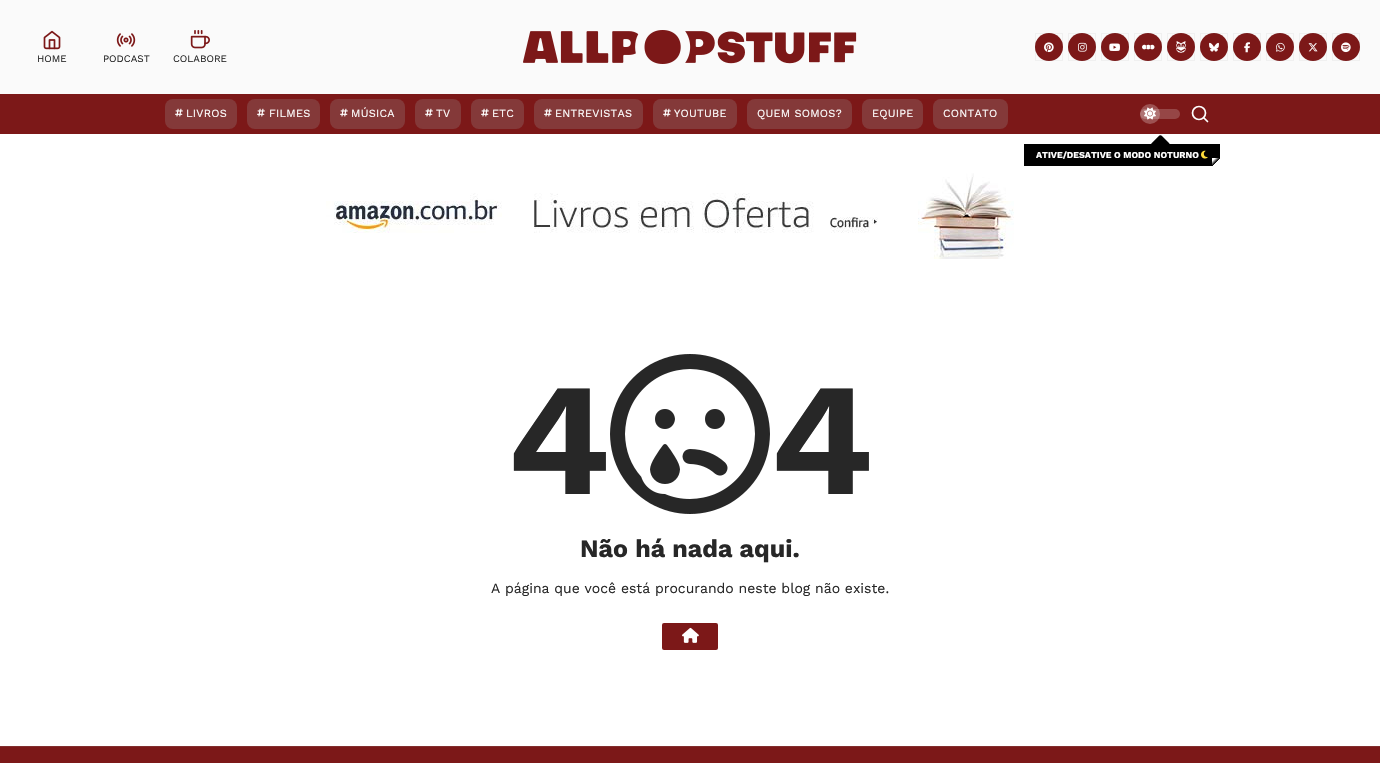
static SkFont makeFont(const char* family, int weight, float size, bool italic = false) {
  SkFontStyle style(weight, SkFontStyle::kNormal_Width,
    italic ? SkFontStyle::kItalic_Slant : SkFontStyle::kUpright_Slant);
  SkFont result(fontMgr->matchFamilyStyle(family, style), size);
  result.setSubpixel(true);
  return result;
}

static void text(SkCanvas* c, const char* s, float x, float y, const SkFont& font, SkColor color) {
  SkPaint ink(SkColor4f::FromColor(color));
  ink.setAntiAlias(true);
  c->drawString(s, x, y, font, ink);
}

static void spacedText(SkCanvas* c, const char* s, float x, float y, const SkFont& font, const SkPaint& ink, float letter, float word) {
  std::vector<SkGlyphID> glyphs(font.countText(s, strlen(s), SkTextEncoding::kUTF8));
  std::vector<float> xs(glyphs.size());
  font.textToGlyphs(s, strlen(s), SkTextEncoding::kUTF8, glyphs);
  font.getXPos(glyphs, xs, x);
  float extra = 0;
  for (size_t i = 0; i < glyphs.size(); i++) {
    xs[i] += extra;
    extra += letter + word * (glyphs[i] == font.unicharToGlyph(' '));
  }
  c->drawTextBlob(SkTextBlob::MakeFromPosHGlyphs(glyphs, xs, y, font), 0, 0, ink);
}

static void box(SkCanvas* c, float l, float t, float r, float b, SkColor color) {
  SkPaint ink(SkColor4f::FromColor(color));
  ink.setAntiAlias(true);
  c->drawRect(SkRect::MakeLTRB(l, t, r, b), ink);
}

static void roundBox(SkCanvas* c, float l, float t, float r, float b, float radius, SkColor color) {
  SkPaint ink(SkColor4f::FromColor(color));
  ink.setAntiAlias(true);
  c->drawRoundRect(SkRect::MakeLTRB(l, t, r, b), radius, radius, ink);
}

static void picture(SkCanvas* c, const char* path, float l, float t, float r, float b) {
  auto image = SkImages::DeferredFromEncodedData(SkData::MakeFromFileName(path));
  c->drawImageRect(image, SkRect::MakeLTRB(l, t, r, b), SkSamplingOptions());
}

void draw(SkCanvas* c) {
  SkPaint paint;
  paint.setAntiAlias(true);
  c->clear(0xffffffff);
  box(c, 0, 0, 1380, 94, 0xfffafafa);
  picture(c, "img_01.png", 43, 30, 61, 50);
  SkFont face1 = makeFont("Work Sans", 400, 10);
  text(c, "HOME", 37, 62, face1, 0xff272727);
  picture(c, "img_02.png", 116, 33, 136, 47);
  text(c, "PODCAST", 103, 62, face1, 0xff272727);
  picture(c, "img_03.png", 190, 30, 210, 49);
  text(c, "COLABORE", 173, 62, face1, 0xff272727);
  picture(c, "img_04.png", 523, 30, 857, 64);
  paint.setColor(0xff7c1818);
  c->drawCircle(1049, 47, 14, paint);
  paint.setStyle(SkPaint::kStroke_Style);
  paint.setStrokeWidth(1);
  paint.setColor(0x0d373737);
  c->drawRect(SkRect::MakeLTRB(1035.5f, 33.5f, 1062.5f, 60.5f), paint);
  picture(c, "img_05.png", 1044, 42, 1054, 53);
  paint.setStyle(SkPaint::kFill_Style);
  paint.setColor(0xff7c1818);
  c->drawCircle(1082, 47, 14, paint);
  paint.setStyle(SkPaint::kStroke_Style);
  paint.setColor(0x0d373737);
  c->drawRect(SkRect::MakeLTRB(1068.5f, 33.5f, 1095.5f, 60.5f), paint);
  picture(c, "img_06.png", 1078, 42, 1087, 52);
  paint.setStyle(SkPaint::kFill_Style);
  paint.setColor(0xff7c1818);
  c->drawCircle(1115, 47, 14, paint);
  paint.setStyle(SkPaint::kStroke_Style);
  paint.setColor(0x0d373737);
  c->drawRect(SkRect::MakeLTRB(1101.5f, 33.5f, 1128.5f, 60.5f), paint);
  picture(c, "img_07.png", 1109, 43, 1120, 51);
  paint.setStyle(SkPaint::kFill_Style);
  paint.setColor(0xff7c1818);
  c->drawCircle(1148, 47, 14, paint);
  paint.setStyle(SkPaint::kStroke_Style);
  paint.setColor(0x0d373737);
  c->drawRect(SkRect::MakeLTRB(1134.5f, 33.5f, 1161.5f, 60.5f), paint);
  picture(c, "img_08.png", 1142, 44, 1155, 50);
  paint.setStyle(SkPaint::kFill_Style);
  paint.setColor(0xff7c1818);
  c->drawCircle(1181, 47, 14, paint);
  paint.setStyle(SkPaint::kStroke_Style);
  paint.setColor(0x0d373737);
  c->drawRect(SkRect::MakeLTRB(1167.5f, 33.5f, 1194.5f, 60.5f), paint);
  picture(c, "img_09.png", 1176, 41, 1186, 53);
  paint.setStyle(SkPaint::kFill_Style);
  paint.setColor(0xff7c1818);
  c->drawCircle(1214, 47, 14, paint);
  paint.setStyle(SkPaint::kStroke_Style);
  paint.setColor(0x0d373737);
  c->drawRect(SkRect::MakeLTRB(1200.5f, 33.5f, 1227.5f, 60.5f), paint);
  picture(c, "img_10.png", 1209, 42, 1219, 52);
  paint.setStyle(SkPaint::kFill_Style);
  paint.setColor(0xff7c1818);
  c->drawCircle(1247, 47, 14, paint);
  paint.setStyle(SkPaint::kStroke_Style);
  paint.setColor(0x0d373737);
  c->drawRect(SkRect::MakeLTRB(1233.5f, 33.5f, 1260.5f, 60.5f), paint);
  picture(c, "img_11.png", 1244, 42, 1250, 53);
  paint.setStyle(SkPaint::kFill_Style);
  paint.setColor(0xff7c1818);
  c->drawCircle(1280, 47, 14, paint);
  paint.setStyle(SkPaint::kStroke_Style);
  paint.setColor(0x0d373737);
  c->drawRect(SkRect::MakeLTRB(1266.5f, 33.5f, 1293.5f, 60.5f), paint);
  picture(c, "img_12.png", 1276, 42, 1285, 52);
  paint.setStyle(SkPaint::kFill_Style);
  paint.setColor(0xff7c1818);
  c->drawCircle(1313, 47, 14, paint);
  paint.setStyle(SkPaint::kStroke_Style);
  paint.setColor(0x0d373737);
  c->drawRect(SkRect::MakeLTRB(1299.5f, 33.5f, 1326.5f, 60.5f), paint);
  picture(c, "img_13.png", 1308, 43, 1318, 52);
  paint.setStyle(SkPaint::kFill_Style);
  paint.setColor(0xff7c1818);
  c->drawCircle(1346, 47, 14, paint);
  paint.setStyle(SkPaint::kStroke_Style);
  paint.setColor(0x0d373737);
  c->drawRect(SkRect::MakeLTRB(1332.5f, 33.5f, 1359.5f, 60.5f), paint);
  picture(c, "img_14.png", 1341, 42, 1351, 53);
  box(c, 0, 94, 1380, 134, 0xff7c1818);
  roundBox(c, 165, 99, 237, 129, 8, 0xff843939);
  picture(c, "img_15.png", 175, 108, 183, 117);
  SkFont face2 = makeFont("Work Sans", 400, 11);
  paint.setStyle(SkPaint::kFill_Style);
  paint.setColor(0xffffffff);
  spacedText(c, "LIVROS", 186, 117, face2, paint, 0.25f, 0);
  roundBox(c, 247, 99, 320, 129, 8, 0xff843939);
  picture(c, "img_15.png", 257, 108, 265, 117);
  spacedText(c, "FILMES", 269, 117, face2, paint, 0.25f, 0);
  roundBox(c, 330, 99, 405, 129, 8, 0xff843939);
  picture(c, "img_15.png", 340, 108, 348, 117);
  spacedText(c, "MÚSICA", 351, 117, face2, paint, 0.25f, 0);
  roundBox(c, 415, 99, 461, 129, 8, 0xff843939);
  picture(c, "img_15.png", 425, 108, 433, 117);
  spacedText(c, "TV", 436, 117, face2, paint, 0.25f, 0);
  roundBox(c, 471, 99, 524, 129, 8, 0xff843939);
  picture(c, "img_15.png", 481, 108, 489, 117);
  spacedText(c, "ETC", 492, 117, face2, paint, 0.25f, 0);
  roundBox(c, 534, 99, 643, 129, 8, 0xff843939);
  picture(c, "img_15.png", 544, 108, 552, 117);
  spacedText(c, "ENTREVISTAS", 555, 117, face2, paint, 0.25f, 0);
  roundBox(c, 653, 99, 737, 129, 8, 0xff843939);
  picture(c, "img_15.png", 663, 108, 671, 117);
  spacedText(c, "YOUTUBE", 674, 117, face2, paint, 0.25f, 0);
  roundBox(c, 747, 99, 852, 129, 8, 0xff843939);
  spacedText(c, "QUEM SOMOS?", 757, 117, face2, paint, 0.25f, 0);
  roundBox(c, 862, 99, 923, 129, 8, 0xff843939);
  spacedText(c, "EQUIPE", 872, 117, face2, paint, 0.25f, 0);
  roundBox(c, 933, 99, 1008, 129, 8, 0xff843939);
  spacedText(c, "CONTATO", 943, 117, face2, paint, 0.25f, 0);
  roundBox(c, 1140, 109, 1180, 119, 5, 0xff964646);
  paint.setColor(0x40ffffff);
  c->drawCircle(1150, 114, 10, paint);
  picture(c, "img_16.png", 1144, 107, 1156, 120);
  paint.setStyle(SkPaint::kStroke_Style);
  paint.setStrokeWidth(1.7f);
  paint.setColor(0xffffffff);
  c->drawCircle(1199, 113, 6.5f, paint);
  paint.setStrokeCap(SkPaint::kRound_Cap);
  paint.setStrokeJoin(SkPaint::kRound_Join);
  c->drawPath(SkPathBuilder().moveTo(1207.5f, 121.5f).lineTo(1204, 118).detach(), paint);
  box(c, 1024, 144, 1220, 166, 0xff010101);
  picture(c, "img_17.png", 1151, 135, 1170, 144);
  SkFont face3 = makeFont("Work Sans", 700, 9);
  text(c, "ATIVE/DESATIVE O MODO NOTURNO", 1036, 158, face3, 0xffffffff);
  picture(c, "img_18.png", 1201, 150, 1208, 159);
  paint.setStyle(SkPaint::kFill_Style);
  {
    const SkColor colors[] = {0xffffffff, 0xff101010, 0xff2f2f2f, 0xffffffff};
    const float stops[] = {0.45f, 0.5f, 0.56f, 0.8f};
    const SkPoint ends[] = {{1220, 166}, {1212, 158}};
    paint.setShader(SkGradientShader::MakeLinear(ends, colors, stops, 4, SkTileMode::kClamp));
    paint.setAlpha(255);
  }
  c->drawRect(SkRect::MakeLTRB(1212, 158, 1220, 166), paint);
  picture(c, "img_19.png", 326, 173, 1014, 259);
  SkFont face4 = makeFont("Work Sans", 700, 160);
  text(c, "4", 507, 494, face4, 0xff272727);
  picture(c, "img_20.png", 610, 354, 770, 514);
  text(c, "4", 770, 494, face4, 0xff272727);
  SkFont face5 = makeFont("Work Sans", 700, 25);
  text(c, "Não há nada aqui.", 580, 557, face5, 0xff272727);
  SkFont face6 = makeFont("Work Sans", 400, 14);
  text(c, "A página que você está procurando neste blog não existe.", 491, 593, face6, 0xff272727);
  roundBox(c, 662, 623, 718, 650, 2, 0xff7c1818);
  picture(c, "img_21.png", 682, 627, 699, 643);
  box(c, 0, 747, 1380, 763, 0xff7c1818);
  box(c, 0, 746, 1380, 747, 0xff812e2e);
}
